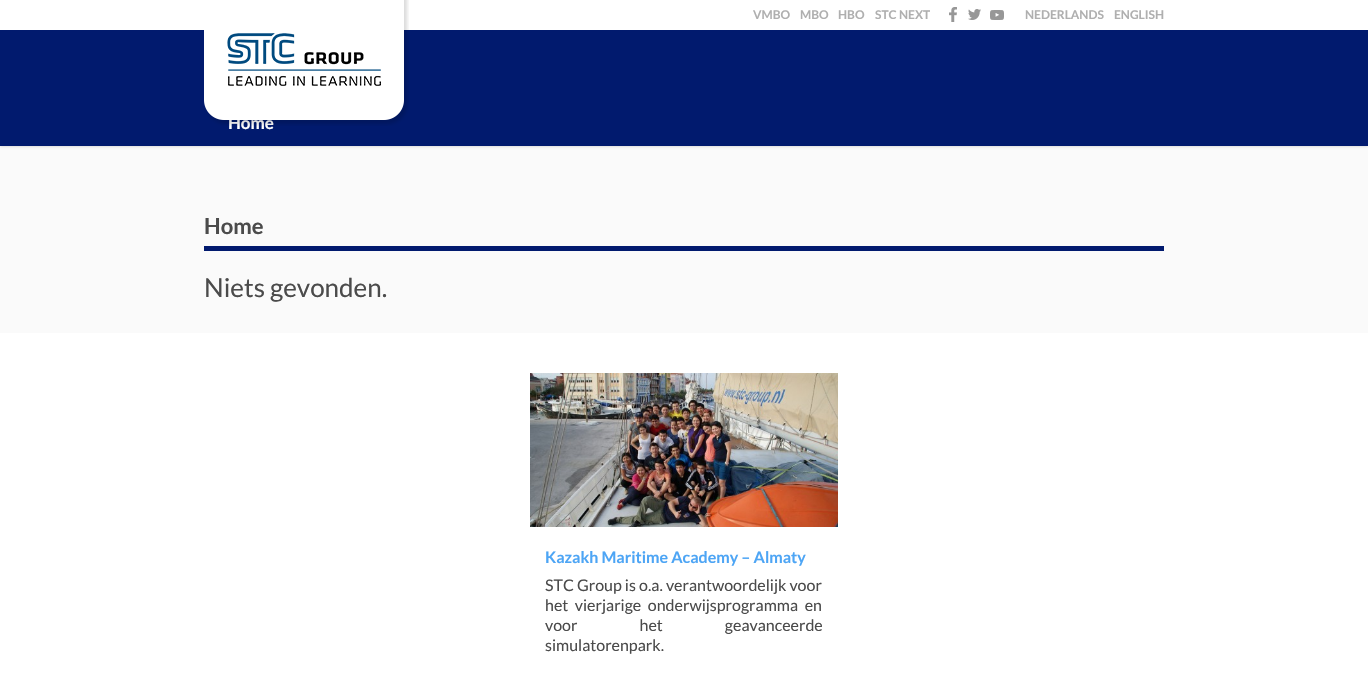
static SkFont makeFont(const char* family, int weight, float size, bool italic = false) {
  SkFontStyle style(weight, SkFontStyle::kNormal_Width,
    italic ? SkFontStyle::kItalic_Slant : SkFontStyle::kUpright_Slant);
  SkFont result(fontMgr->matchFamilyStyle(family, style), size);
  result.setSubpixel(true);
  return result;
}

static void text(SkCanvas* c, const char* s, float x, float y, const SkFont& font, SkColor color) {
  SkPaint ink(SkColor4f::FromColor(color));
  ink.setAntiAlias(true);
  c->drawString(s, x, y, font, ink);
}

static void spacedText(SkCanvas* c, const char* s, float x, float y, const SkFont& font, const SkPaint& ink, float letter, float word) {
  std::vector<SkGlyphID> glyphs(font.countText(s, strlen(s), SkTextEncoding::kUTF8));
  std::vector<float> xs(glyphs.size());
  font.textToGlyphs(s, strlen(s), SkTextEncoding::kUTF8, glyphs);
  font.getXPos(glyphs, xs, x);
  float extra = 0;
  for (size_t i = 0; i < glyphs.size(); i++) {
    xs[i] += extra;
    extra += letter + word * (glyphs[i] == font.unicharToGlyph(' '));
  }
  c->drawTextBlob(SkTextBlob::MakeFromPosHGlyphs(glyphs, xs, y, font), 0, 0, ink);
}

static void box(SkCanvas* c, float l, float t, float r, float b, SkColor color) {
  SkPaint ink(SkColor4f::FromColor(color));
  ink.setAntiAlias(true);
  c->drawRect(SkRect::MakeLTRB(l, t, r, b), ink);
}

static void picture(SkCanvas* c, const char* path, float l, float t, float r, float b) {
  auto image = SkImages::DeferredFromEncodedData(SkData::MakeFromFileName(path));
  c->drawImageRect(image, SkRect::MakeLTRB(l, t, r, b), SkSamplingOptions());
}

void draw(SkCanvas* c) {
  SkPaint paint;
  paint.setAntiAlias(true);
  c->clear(0xfffafafa);
  paint.setColor(0x33000000);
  paint.setMaskFilter(SkMaskFilter::MakeBlur(kNormal_SkBlurStyle, 1.5f));
  c->drawRect(SkRect::MakeLTRB(0, 0, 1368, 146), paint);
  paint.setMaskFilter(nullptr);
  box(c, 0, 0, 1368, 30, 0xffffffff);
  box(c, 0, 30, 1368, 146, 0xff011a6e);
  SkFont face1 = makeFont("Lato", 700, 17);
  text(c, "Home", 228, 129, face1, 0xffffffff);
  picture(c, "img_01.png", 204, 0, 409, 126);
  SkFont face2 = makeFont("Lato", 700, 12);
  text(c, "VMBO", 753, 19, face2, 0xffafafaf);
  text(c, "MBO", 800, 19, face2, 0xffafafaf);
  text(c, "HBO", 838, 19, face2, 0xffafafaf);
  text(c, "STC NEXT", 875, 19, face2, 0xffafafaf);
  picture(c, "img_02.png", 949, 7, 957, 22);
  picture(c, "img_03.png", 968, 9, 981, 20);
  picture(c, "img_04.png", 990, 10, 1004, 20);
  text(c, "NEDERLANDS", 1025, 19, face2, 0xffafafaf);
  text(c, "ENGLISH", 1114, 19, face2, 0xffafafaf);
  box(c, 204, 246, 1164, 251, 0xff011a6e);
  SkFont face3 = makeFont("Lato", 700, 22);
  text(c, "Home", 204, 234, face3, 0xff4b4b4b);
  SkFont face4 = makeFont("Lato", 400, 26);
  text(c, "Niets gevonden.", 204, 297, face4, 0xff4b4b4b);
  box(c, 0, 333, 1368, 675, 0xffffffff);
  picture(c, "img_05.png", 530, 373, 838, 527);
  SkFont face5 = makeFont("Lato", 700, 16);
  text(c, "Kazakh Maritime Academy – Almaty", 545, 563, face5, 0xff4da5f5);
  SkFont face6 = makeFont("Lato", 400, 16);
  text(c, "STC Group is o.a. verantwoordelijk voor", 545, 591, face6, 0xff4b4b4b);
  paint.setColor(0xff4b4b4b);
  spacedText(c, "het vierjarige onderwijsprogramma en", 545, 611, face6, paint, 0, 3.5f);
  spacedText(c, "voor het geavanceerde", 545, 631, face6, paint, 0, 59);
  text(c, "simulatorenpark.", 545, 651, face6, 0xff4b4b4b);
}
